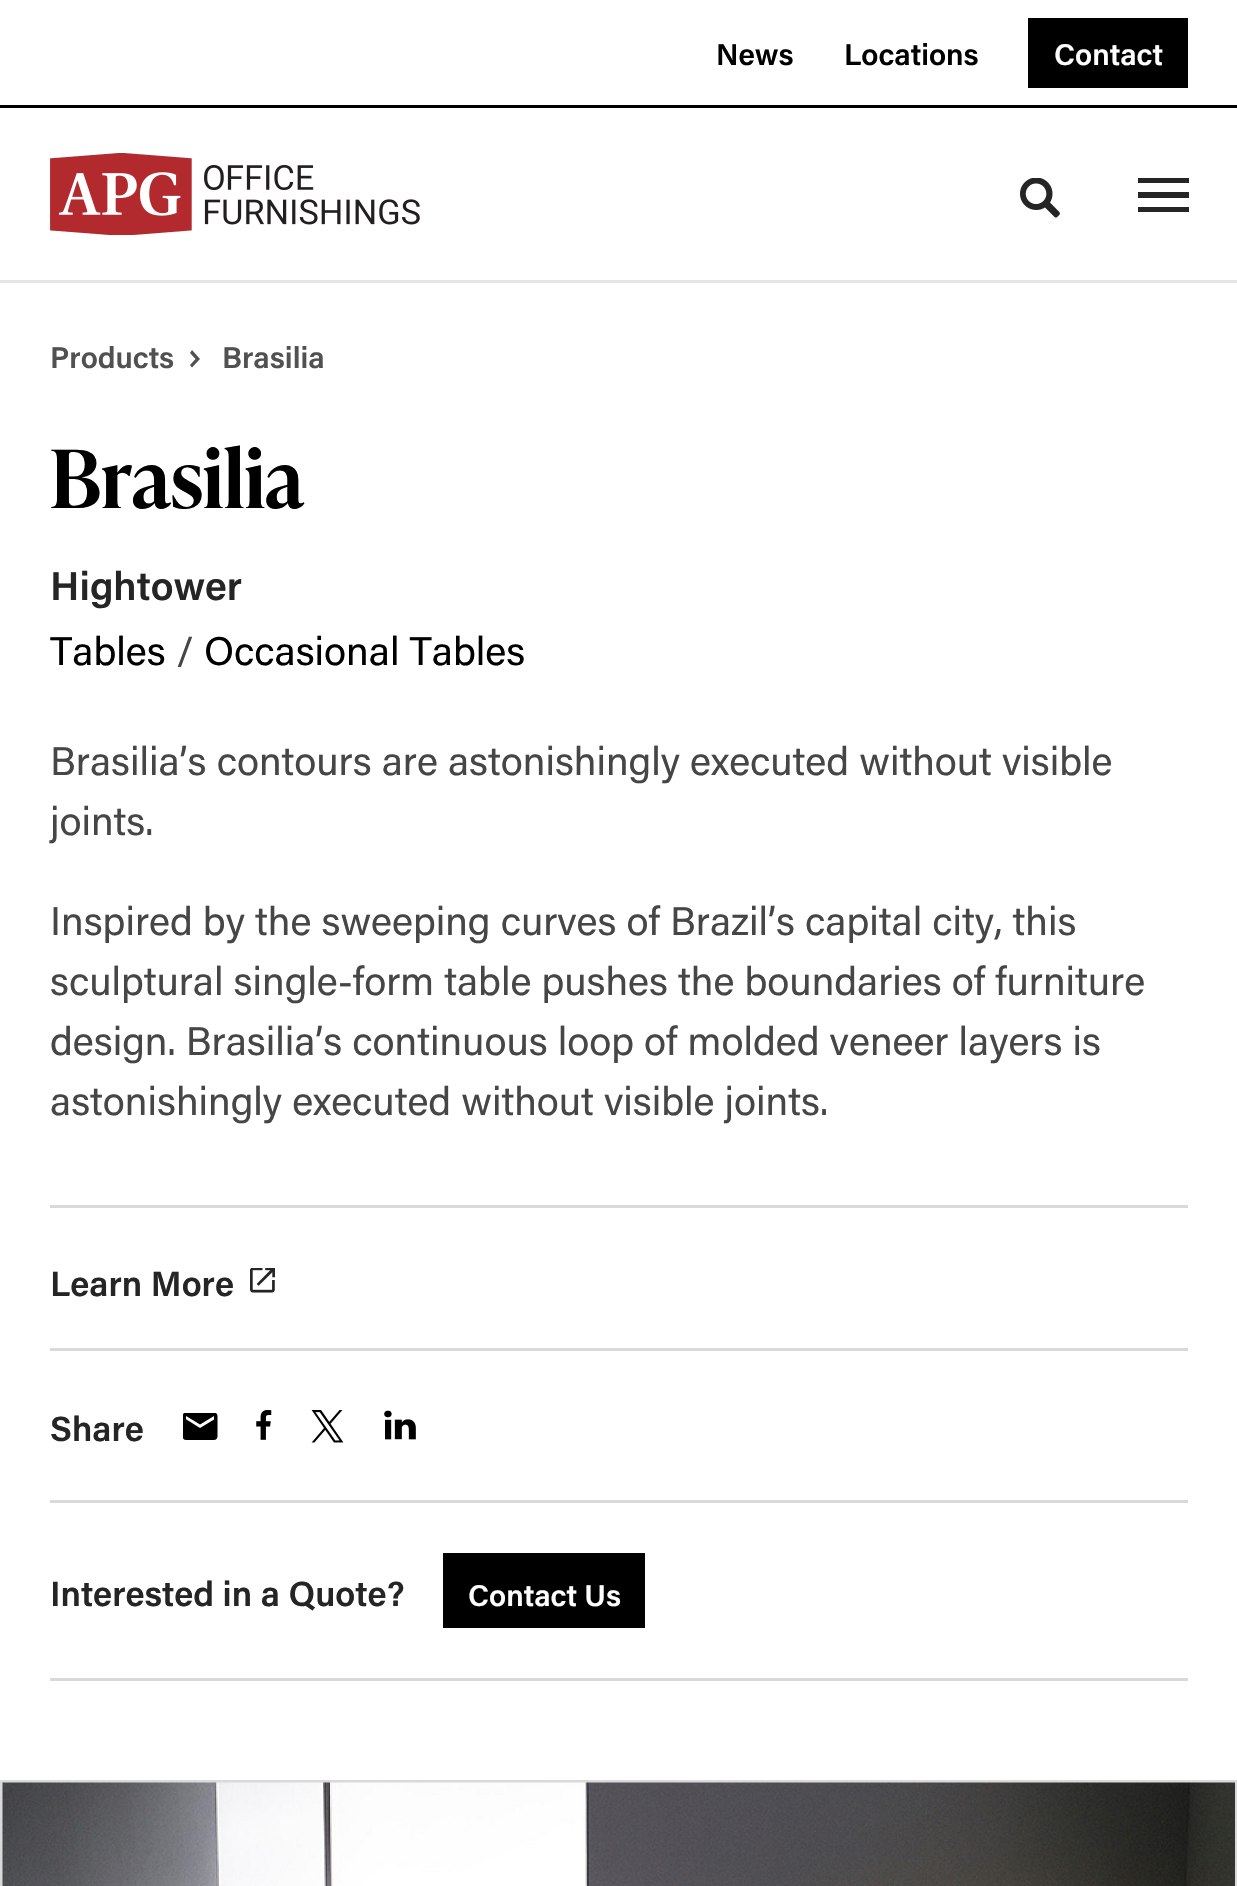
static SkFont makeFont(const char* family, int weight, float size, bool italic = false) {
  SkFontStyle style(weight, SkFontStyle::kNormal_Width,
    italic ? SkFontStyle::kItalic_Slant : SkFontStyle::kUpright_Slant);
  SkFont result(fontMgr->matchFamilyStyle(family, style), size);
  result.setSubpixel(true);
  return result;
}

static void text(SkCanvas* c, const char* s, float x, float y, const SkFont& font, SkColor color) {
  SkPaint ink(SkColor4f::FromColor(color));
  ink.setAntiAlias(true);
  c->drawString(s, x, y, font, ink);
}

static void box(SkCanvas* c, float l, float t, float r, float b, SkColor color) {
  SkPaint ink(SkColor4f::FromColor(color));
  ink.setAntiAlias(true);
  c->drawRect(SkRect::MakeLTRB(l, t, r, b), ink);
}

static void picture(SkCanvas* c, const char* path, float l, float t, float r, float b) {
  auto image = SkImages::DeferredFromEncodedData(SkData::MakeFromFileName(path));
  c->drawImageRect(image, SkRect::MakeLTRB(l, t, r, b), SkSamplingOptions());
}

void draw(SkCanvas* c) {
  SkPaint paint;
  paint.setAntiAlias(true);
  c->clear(0xffffffff);
  box(c, 0, 105, 1237, 108, 0xff000000);
  SkFont face1 = makeFont("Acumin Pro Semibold", 600, 30);
  text(c, "News", 716, 65, face1, 0xff000000);
  text(c, "Locations", 844, 65, face1, 0xff000000);
  box(c, 1028, 18, 1188, 88, 0xff000000);
  text(c, "Contact", 1054, 65, face1, 0xffffffff);
  box(c, 0, 280, 1237, 283, 0xffe6e6e6);
  picture(c, "img_01.png", 50, 153, 420, 235);
  picture(c, "img_02.png", 1020, 178, 1060, 218);
  c->save();
  c->clipRect(SkRect::MakeLTRB(1138, 178, 1190, 213));
  paint.setColor(0xff252525);
  c->drawPath(SkPathBuilder(SkPathFillType::kEvenOdd).moveTo(1136, 212).lineTo(1189, 212).lineTo(1189, 207).lineTo(1136, 207).close().moveTo(1136, 198).lineTo(1189, 198).lineTo(1189, 192).lineTo(1136, 192).close().moveTo(1136, 178).lineTo(1136, 183).lineTo(1189, 183).lineTo(1189, 178).close().detach(), paint);
  c->restore();
  text(c, "Products", 50, 368, face1, 0xff515151);
  paint.setColor(0xff515151);
  c->drawPath(SkPathBuilder(SkPathFillType::kEvenOdd).moveTo(190, 365).lineTo(192, 367.5f).lineTo(200, 359).lineTo(192, 350).lineTo(190, 353).lineTo(195.5f, 359).close().detach(), paint);
  text(c, "Brasilia", 222, 368, face1, 0xff515151);
  SkFont face2 = makeFont("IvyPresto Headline", 600, 80);
  text(c, "Brasilia", 50, 508, face2, 0xff000000);
  SkFont face3 = makeFont("Acumin Pro Semibold", 600, 40);
  text(c, "Hightower", 50, 600, face3, 0xff252525);
  SkFont face4 = makeFont("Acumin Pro", 400, 40);
  text(c, "Tables", 50, 665, face4, 0xff000000);
  text(c, "/", 176, 665, face4, 0xff464646);
  text(c, "Occasional Tables", 204, 665, face4, 0xff000000);
  text(c, "Brasilia’s contours are astonishingly executed without visible", 50, 775, face4, 0xff464646);
  text(c, "joints.", 50, 835, face4, 0xff464646);
  text(c, "Inspired by the sweeping curves of Brazil’s capital city, this", 50, 935, face4, 0xff464646);
  text(c, "sculptural single-form table pushes the boundaries of furniture", 50, 995, face4, 0xff464646);
  text(c, "design. Brasilia’s continuous loop of molded veneer layers is", 50, 1055, face4, 0xff464646);
  text(c, "astonishingly executed without visible joints.", 50, 1115, face4, 0xff464646);
  box(c, 50, 1678, 1188, 1681, 0xffd9d9d9);
  box(c, 50, 1205, 1188, 1208, 0xffd9d9d9);
  SkFont face5 = makeFont("Acumin Pro Semibold", 600, 35);
  text(c, "Learn More", 50, 1296, face5, 0xff252525);
  picture(c, "img_03.png", 250, 1268, 275, 1293);
  box(c, 50, 1348, 1188, 1351, 0xffd9d9d9);
  text(c, "Share", 50, 1441, face5, 0xff252525);
  picture(c, "img_04.png", 183, 1413, 218, 1440);
  picture(c, "img_05.png", 256, 1410, 272, 1440);
  picture(c, "img_06.png", 311, 1410, 344, 1443);
  picture(c, "img_07.png", 384, 1410, 416, 1440);
  box(c, 50, 1500, 1188, 1503, 0xffd9d9d9);
  text(c, "Interested in a Quote?", 50, 1606, face5, 0xff252525);
  box(c, 443, 1553, 645, 1628, 0xff000000);
  text(c, "Contact Us", 468, 1606, face1, 0xffffffff);
  paint.setStyle(SkPaint::kStroke_Style);
  paint.setStrokeWidth(3);
  paint.setColor(0xffd9d9d9);
  c->drawRect(SkRect::MakeLTRB(1.5f, 1781.5f, 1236.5f, 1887.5f), paint);
  picture(c, "img_08.png", 2, 1782, 1235, 1886);
}
